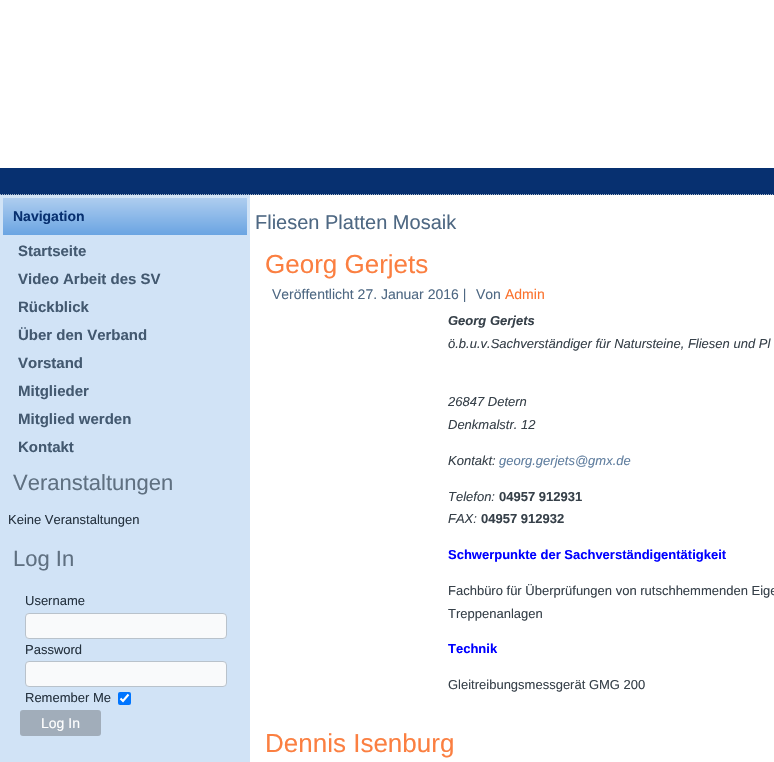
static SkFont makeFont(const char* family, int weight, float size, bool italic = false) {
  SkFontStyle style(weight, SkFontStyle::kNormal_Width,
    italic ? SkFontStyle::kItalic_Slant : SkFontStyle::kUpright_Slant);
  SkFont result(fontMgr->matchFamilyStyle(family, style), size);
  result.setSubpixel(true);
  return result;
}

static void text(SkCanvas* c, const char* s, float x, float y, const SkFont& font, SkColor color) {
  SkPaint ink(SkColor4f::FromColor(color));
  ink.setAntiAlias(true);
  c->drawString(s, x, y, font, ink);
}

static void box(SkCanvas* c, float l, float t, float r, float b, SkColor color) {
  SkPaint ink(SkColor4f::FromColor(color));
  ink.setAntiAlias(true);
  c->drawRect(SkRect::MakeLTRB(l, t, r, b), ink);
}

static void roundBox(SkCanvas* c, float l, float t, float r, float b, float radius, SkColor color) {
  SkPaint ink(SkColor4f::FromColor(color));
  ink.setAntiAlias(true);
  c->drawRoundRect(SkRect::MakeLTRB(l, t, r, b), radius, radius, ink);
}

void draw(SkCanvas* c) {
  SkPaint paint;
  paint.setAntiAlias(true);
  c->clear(0xffffffff);
  box(c, 0, 168, 774, 195, 0xff073070);
  paint.setStyle(SkPaint::kStroke_Style);
  paint.setStrokeWidth(1);
  paint.setColor(0xffa3b4c8);
  paint.setPathEffect(SkDashPathEffect::Make({{1, 1}}, 0));
  c->drawPath(SkPathBuilder().moveTo(0, 194.5f).lineTo(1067, 194.5f).detach(), paint);
  paint.setPathEffect(nullptr);
  box(c, 0, 195, 250, 762, 0xffd1e3f6);
  paint.setStyle(SkPaint::kFill_Style);
  {
    const SkColor colors[] = {0xffaecdef, 0xff6aa4e2};
    const float stops[] = {0, 1};
    const SkPoint ends[] = {{125, 198}, {125, 235}};
    paint.setShader(SkGradientShader::MakeLinear(ends, colors, stops, 2, SkTileMode::kClamp));
    paint.setAlpha(255);
  }
  c->drawRect(SkRect::MakeLTRB(3, 198, 247, 235), paint);
  SkFont face1 = makeFont("Liberation Sans", 700, 14);
  text(c, "Navigation", 13, 221, face1, 0xff073070);
  SkFont face2 = makeFont("Liberation Sans", 700, 15);
  text(c, "Startseite", 18, 256, face2, 0xff435970);
  text(c, "Video Arbeit des SV", 18, 284, face2, 0xff435970);
  text(c, "Rückblick", 18, 312, face2, 0xff435970);
  text(c, "Über den Verband", 18, 340, face2, 0xff435970);
  text(c, "Vorstand", 18, 368, face2, 0xff435970);
  text(c, "Mitglieder", 18, 396, face2, 0xff435970);
  text(c, "Mitglied werden", 18, 424, face2, 0xff435970);
  text(c, "Kontakt", 18, 452, face2, 0xff435970);
  SkFont face3 = makeFont("Liberation Sans", 400, 22);
  text(c, "Veranstaltungen", 13, 490, face3, 0xff5f7081);
  SkFont face4 = makeFont("Liberation Sans", 400, 13);
  text(c, "Keine Veranstaltungen", 8, 524, face4, 0xff263340);
  text(c, "Log In", 13, 566, face3, 0xff5f7081);
  text(c, "Username", 25, 605, face4, 0xff263340);
  paint.setShader(nullptr);
  paint.setColor(0xfff9fafb);
  c->drawRoundRect(SkRect::MakeLTRB(25.5f, 613.5f, 226.5f, 638.5f), 3.5f, 3.5f, paint);
  paint.setStyle(SkPaint::kStroke_Style);
  paint.setColor(0xffb9c2cb);
  c->drawRoundRect(SkRect::MakeLTRB(25.5f, 613.5f, 226.5f, 638.5f), 3.5f, 3.5f, paint);
  text(c, "Password", 25, 654, face4, 0xff263340);
  paint.setStyle(SkPaint::kFill_Style);
  paint.setColor(0xfff9fafb);
  c->drawRoundRect(SkRect::MakeLTRB(25.5f, 661.5f, 226.5f, 686.5f), 3.5f, 3.5f, paint);
  paint.setStyle(SkPaint::kStroke_Style);
  paint.setColor(0xffb9c2cb);
  c->drawRoundRect(SkRect::MakeLTRB(25.5f, 661.5f, 226.5f, 686.5f), 3.5f, 3.5f, paint);
  text(c, "Remember Me", 25, 702, face4, 0xff263340);
  roundBox(c, 118, 692, 131, 705, 2, 0xff0075ff);
  paint.setStrokeWidth(2.1f);
  paint.setColor(0xffffffff);
  c->drawPath(SkPathBuilder().moveTo(120.5f, 698.5f).lineTo(123, 701).lineTo(128.5f, 694.5f).detach(), paint);
  roundBox(c, 20, 710, 101, 736, 3, 0xffa1adba);
  SkFont face5 = makeFont("Liberation Sans", 400, 14);
  text(c, "Log In", 41, 728, face5, 0xffffffff);
  SkFont face6 = makeFont("Liberation Sans", 400, 20);
  text(c, "Fliesen Platten Mosaik", 255, 229, face6, 0xff4e6883);
  SkFont face7 = makeFont("Liberation Sans", 400, 26);
  text(c, "Georg Gerjets", 265, 273, face7, 0xfffb7f41);
  text(c, "Veröffentlicht 27. Januar 2016 |", 272, 299, face5, 0xff4e6883);
  text(c, "Von", 476, 299, face5, 0xff4e6883);
  text(c, "Admin", 505, 299, face5, 0xfffb722d);
  SkFont face8 = makeFont("Liberation Sans", 700, 13, true);
  text(c, "Georg Gerjets", 448, 325, face8, 0xff364049);
  SkFont face9 = makeFont("Liberation Sans", 400, 13, true);
  text(c, "ö.b.u.v.Sachverständiger für Natursteine, Fliesen und Pl", 448, 348, face9, 0xff364049);
  text(c, "26847 Detern", 448, 406, face9, 0xff364049);
  text(c, "Denkmalstr. 12", 448, 429, face9, 0xff364049);
  text(c, "Kontakt:", 448, 465, face9, 0xff364049);
  text(c, "georg.gerjets@gmx.de", 499, 465, face9, 0xff607e9f);
  text(c, "Telefon:", 448, 501, face9, 0xff364049);
  SkFont face10 = makeFont("Liberation Sans", 700, 13);
  text(c, "04957 912931", 499, 501, face10, 0xff364049);
  text(c, "FAX:", 448, 523, face9, 0xff364049);
  text(c, "04957 912932", 481, 523, face10, 0xff364049);
  text(c, "Schwerpunkte der Sachverständigentätigkeit", 448, 559, face10, 0xff0000ff);
  text(c, "Fachbüro für Überprüfungen von rutschhemmenden Eige", 448, 595, face4, 0xff364049);
  text(c, "Treppenanlagen", 448, 618, face4, 0xff364049);
  text(c, "Technik", 448, 653, face10, 0xff0000ff);
  text(c, "Gleitreibungsmessgerät GMG 200", 448, 689, face4, 0xff364049);
  text(c, "Dennis Isenburg", 265, 752, face7, 0xfffb7f41);
}
